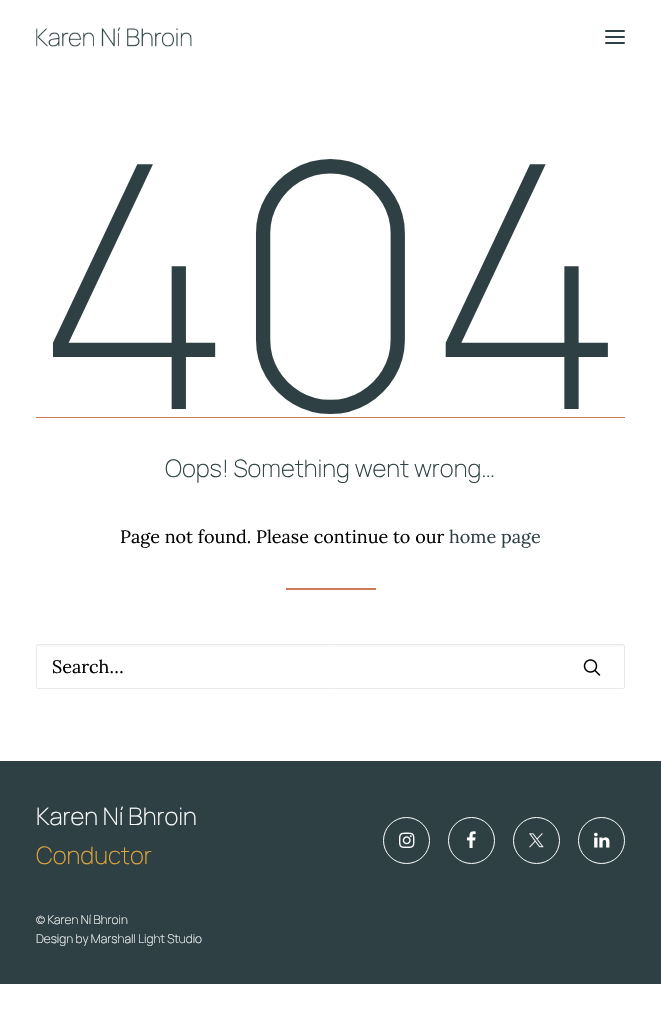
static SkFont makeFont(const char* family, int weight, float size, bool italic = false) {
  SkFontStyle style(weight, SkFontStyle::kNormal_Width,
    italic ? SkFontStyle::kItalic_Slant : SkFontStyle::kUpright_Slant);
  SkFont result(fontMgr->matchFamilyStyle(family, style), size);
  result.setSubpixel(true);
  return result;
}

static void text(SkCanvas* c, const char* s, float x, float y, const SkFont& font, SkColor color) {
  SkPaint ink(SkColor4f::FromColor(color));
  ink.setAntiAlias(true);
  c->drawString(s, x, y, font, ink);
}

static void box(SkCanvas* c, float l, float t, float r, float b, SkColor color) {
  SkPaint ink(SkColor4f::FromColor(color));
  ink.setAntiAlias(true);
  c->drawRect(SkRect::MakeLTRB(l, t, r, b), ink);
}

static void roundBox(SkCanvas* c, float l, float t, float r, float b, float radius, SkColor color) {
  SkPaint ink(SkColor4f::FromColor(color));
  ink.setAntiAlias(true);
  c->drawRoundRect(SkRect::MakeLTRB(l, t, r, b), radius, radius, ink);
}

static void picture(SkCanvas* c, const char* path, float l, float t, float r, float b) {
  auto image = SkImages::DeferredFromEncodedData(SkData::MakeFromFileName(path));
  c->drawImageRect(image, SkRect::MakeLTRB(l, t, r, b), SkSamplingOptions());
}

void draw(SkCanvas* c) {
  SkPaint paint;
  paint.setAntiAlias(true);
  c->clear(0xffffffff);
  picture(c, "img_01.png", 36, 27, 192, 47);
  roundBox(c, 605, 36, 625, 38, 1, 0xff2e4043);
  roundBox(c, 605, 30, 625, 32, 1, 0xff2e4043);
  roundBox(c, 605, 42, 625, 44, 1, 0xff2e4043);
  SkFont face1 = makeFont("Manrope", 200, 340);
  text(c, "404", 36, 409, face1, 0xff2e4043);
  box(c, 36, 417, 625, 418, 0xffcd7b58);
  SkFont face2 = makeFont("Manrope", 200, 24);
  text(c, "Oops! Something went wrong…", 165, 477, face2, 0xff2e4043);
  SkFont face3 = makeFont("Lora", 400, 18);
  text(c, "Page not found. Please continue to our", 120, 543, face3, 0xff000000);
  text(c, "home page", 449, 543, face3, 0xff2e4043);
  box(c, 286, 588, 376, 590, 0xffcd7b58);
  paint.setColor(0xfff9f9f9);
  c->drawPath(SkPathBuilder().moveTo(38, 647).lineTo(624, 647).lineTo(624, 645).lineTo(38, 645).lineTo(37, 645).lineTo(37, 648).close().detach(), paint);
  paint.setStyle(SkPaint::kStroke_Style);
  paint.setStrokeWidth(1);
  paint.setColor(0xffeaeaea);
  c->drawRoundRect(SkRect::MakeLTRB(36.5f, 644.5f, 624.5f, 688.5f), 1.5f, 1.5f, paint);
  text(c, "Search…", 52, 673, face3, 0xff000000);
  picture(c, "img_02.png", 583, 659, 601, 676);
  box(c, 0, 761, 661, 984, 0xff2e4043);
  text(c, "Karen Ní Bhroin", 36, 825, face2, 0xffffffff);
  text(c, "Conductor", 36, 864, face2, 0xffe2a63e);
  paint.setColor(0xffffffff);
  c->drawCircle(406.5f, 840.5f, 23, paint);
  picture(c, "img_03.png", 399, 832, 415, 848);
  c->drawCircle(471.5f, 840.5f, 23, paint);
  picture(c, "img_04.png", 466, 831, 476, 848);
  c->drawCircle(536.5f, 840.5f, 23, paint);
  picture(c, "img_05.png", 529, 833, 544, 848);
  c->drawCircle(601.5f, 840.5f, 23, paint);
  picture(c, "img_06.png", 594, 832, 610, 848);
  SkFont face4 = makeFont("Manrope", 200, 12);
  text(c, "© Karen Ní Bhroin", 36, 924, face4, 0xffffffff);
  text(c, "Design by Marshall Light Studio", 36, 943, face4, 0xffffffff);
}
